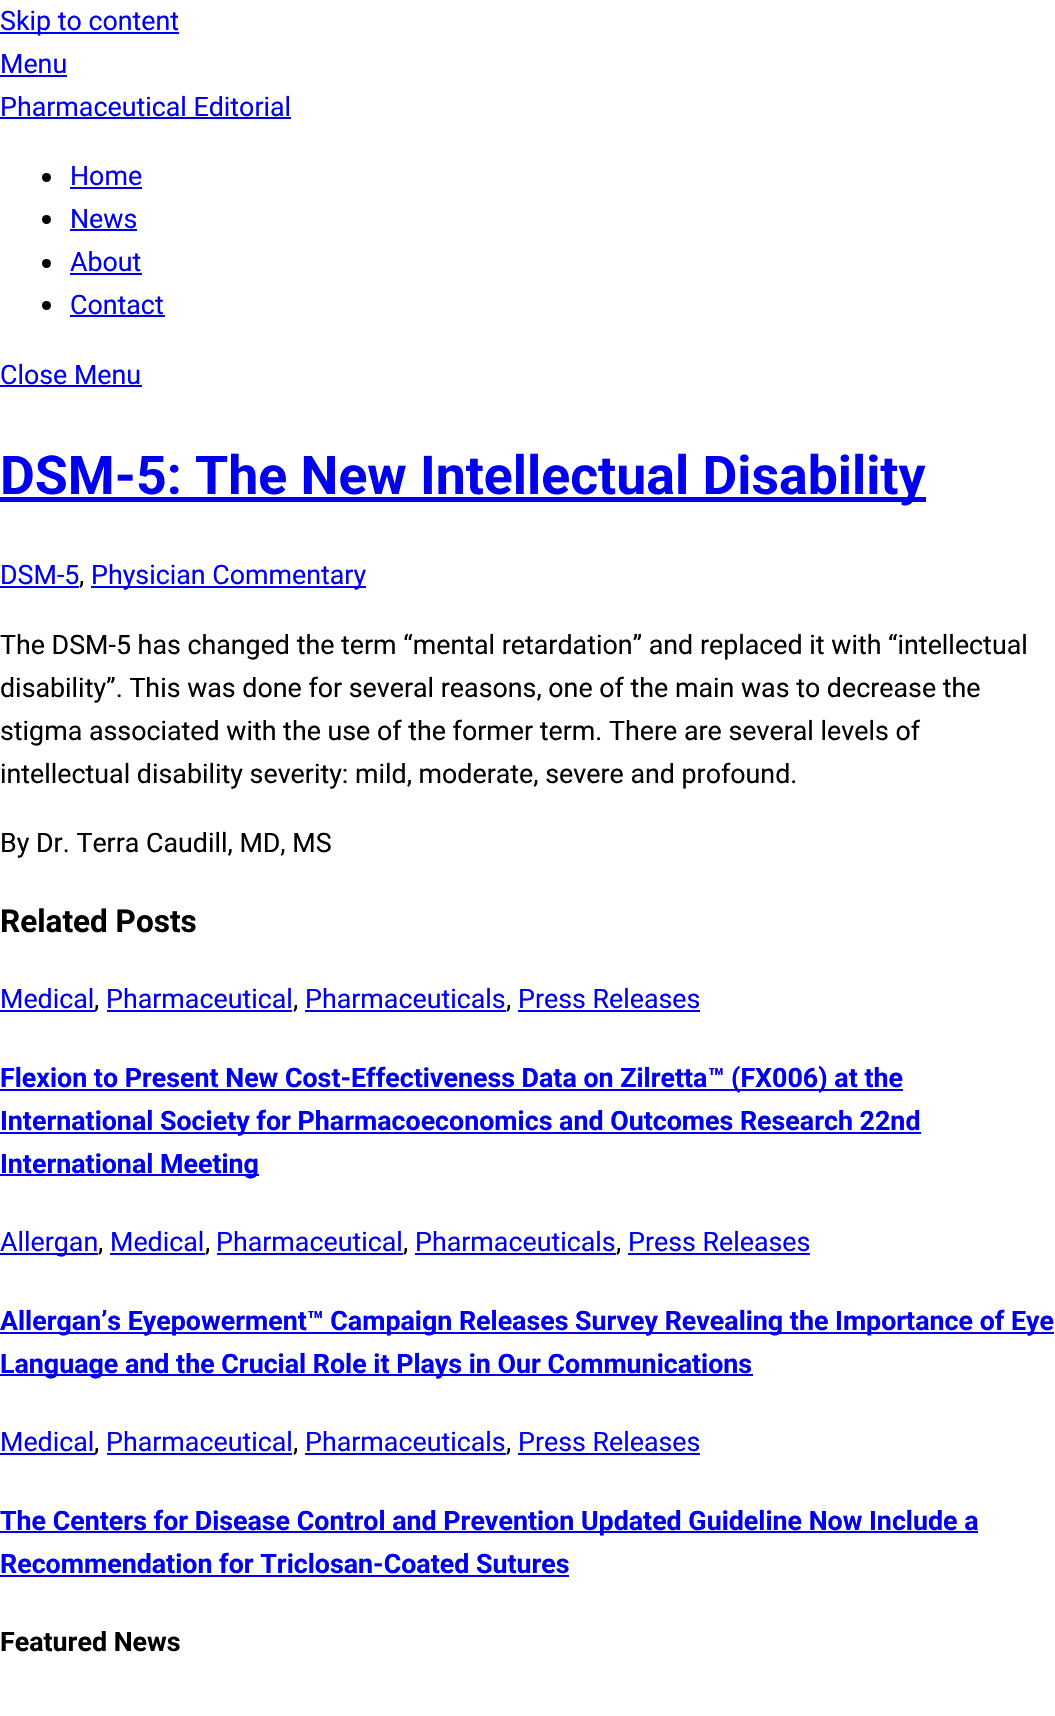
static SkFont makeFont(const char* family, int weight, float size, bool italic = false) {
  SkFontStyle style(weight, SkFontStyle::kNormal_Width,
    italic ? SkFontStyle::kItalic_Slant : SkFontStyle::kUpright_Slant);
  SkFont result(fontMgr->matchFamilyStyle(family, style), size);
  result.setSubpixel(true);
  return result;
}

static void text(SkCanvas* c, const char* s, float x, float y, const SkFont& font, SkColor color) {
  SkPaint ink(SkColor4f::FromColor(color));
  ink.setAntiAlias(true);
  c->drawString(s, x, y, font, ink);
}

static void box(SkCanvas* c, float l, float t, float r, float b, SkColor color) {
  SkPaint ink(SkColor4f::FromColor(color));
  ink.setAntiAlias(true);
  c->drawRect(SkRect::MakeLTRB(l, t, r, b), ink);
}

void draw(SkCanvas* c) {
  SkPaint paint;
  paint.setAntiAlias(true);
  c->clear(0xffffffff);
  box(c, 0, 32, 179, 34, 0xff0000ee);
  SkFont face1 = makeFont("Roboto", 400, 26.8f);
  text(c, "Skip to content", 0, 30, face1, 0xff0000ee);
  text(c, "Menu", 0, 73, face1, 0xff0000ee);
  box(c, 0, 75, 67, 77, 0xff0000ee);
  text(c, "Pharmaceutical Editorial", 0, 116, face1, 0xff0000ee);
  box(c, 0, 117, 291, 119, 0xff0000ee);
  paint.setColor(0xff000000);
  c->drawCircle(46.5f, 177.5f, 4.5f, paint);
  text(c, "Home", 70, 185, face1, 0xff0000ee);
  box(c, 70, 187, 142, 189, 0xff0000ee);
  c->drawCircle(46.5f, 219.5f, 4.5f, paint);
  text(c, "News", 70, 228, face1, 0xff0000ee);
  box(c, 70, 229, 137, 231, 0xff0000ee);
  c->drawCircle(46.5f, 263.5f, 4.5f, paint);
  text(c, "About", 70, 271, face1, 0xff0000ee);
  box(c, 70, 273, 142, 275, 0xff0000ee);
  c->drawCircle(46.5f, 305.5f, 4.5f, paint);
  text(c, "Contact", 70, 314, face1, 0xff0000ee);
  box(c, 70, 315, 165, 317, 0xff0000ee);
  text(c, "Close Menu", 0, 384, face1, 0xff0000ee);
  box(c, 0, 385, 142, 387, 0xff0000ee);
  box(c, 0, 497, 926, 502, 0xff0000ee);
  SkFont face2 = makeFont("Roboto", 700, 53.6f);
  text(c, "DSM-5: The New Intellectual Disability", 0, 494, face2, 0xff0000ee);
  text(c, "DSM-5", 0, 584, face1, 0xff0000ee);
  text(c, ",", 79, 584, face1, 0xff000000);
  box(c, 0, 586, 79, 588, 0xff0000ee);
  box(c, 91, 586, 366, 588, 0xff0000ee);
  text(c, "Physician Commentary", 91, 584, face1, 0xff0000ee);
  text(c, "The DSM-5 has changed the term “mental retardation” and replaced it with “intellectual", 0, 654, face1, 0xff000000);
  text(c, "disability”. This was done for several reasons, one of the main was to decrease the", 0, 697, face1, 0xff000000);
  text(c, "stigma associated with the use of the former term. There are several levels of", 0, 740, face1, 0xff000000);
  text(c, "intellectual disability severity: mild, moderate, severe and profound.", 0, 783, face1, 0xff000000);
  text(c, "By Dr. Terra Caudill, MD, MS", 0, 852, face1, 0xff000000);
  SkFont face3 = makeFont("Roboto", 700, 31.5f);
  text(c, "Related Posts", 0, 932, face3, 0xff000000);
  text(c, "Medical", 0, 1008, face1, 0xff0000ee);
  box(c, 0, 1010, 95, 1012, 0xff0000ee);
  text(c, ",", 94, 1008, face1, 0xff000000);
  text(c, "Pharmaceutical", 106, 1008, face1, 0xff0000ee);
  text(c, ",", 293, 1008, face1, 0xff000000);
  box(c, 107, 1010, 292, 1012, 0xff0000ee);
  text(c, "Pharmaceuticals", 305, 1008, face1, 0xff0000ee);
  text(c, ",", 506, 1008, face1, 0xff000000);
  box(c, 305, 1010, 506, 1012, 0xff0000ee);
  box(c, 518, 1010, 700, 1012, 0xff0000ee);
  text(c, "Press Releases", 518, 1008, face1, 0xff0000ee);
  box(c, 0, 1089, 903, 1091, 0xff0000ee);
  SkFont face4 = makeFont("Roboto", 700, 26.8f);
  text(c, "Flexion to Present New Cost-Effectiveness Data on Zilretta™ (FX006) at the", 0, 1087, face4, 0xff0000ee);
  box(c, 0, 1132, 921, 1134, 0xff0000ee);
  text(c, "International Society for Pharmacoeconomics and Outcomes Research 22nd", 0, 1130, face4, 0xff0000ee);
  box(c, 0, 1174, 259, 1176, 0xff0000ee);
  text(c, "International Meeting", 0, 1173, face4, 0xff0000ee);
  box(c, 0, 1253, 98, 1255, 0xff0000ee);
  text(c, "Allergan", 0, 1251, face1, 0xff0000ee);
  text(c, ",", 98, 1251, face1, 0xff000000);
  text(c, "Medical", 110, 1251, face1, 0xff0000ee);
  box(c, 110, 1253, 205, 1255, 0xff0000ee);
  text(c, ",", 205, 1251, face1, 0xff000000);
  text(c, "Pharmaceutical", 216, 1251, face1, 0xff0000ee);
  text(c, ",", 403, 1251, face1, 0xff000000);
  box(c, 217, 1253, 403, 1255, 0xff0000ee);
  text(c, "Pharmaceuticals", 415, 1251, face1, 0xff0000ee);
  text(c, ",", 616, 1251, face1, 0xff000000);
  box(c, 415, 1253, 616, 1255, 0xff0000ee);
  box(c, 628, 1253, 810, 1255, 0xff0000ee);
  text(c, "Press Releases", 628, 1251, face1, 0xff0000ee);
  box(c, 0, 1332, 1054, 1334, 0xff0000ee);
  text(c, "Allergan’s Eyepowerment™ Campaign Releases Survey Revealing the Importance of Eye", 0, 1330, face4, 0xff0000ee);
  box(c, 0, 1374, 753, 1376, 0xff0000ee);
  text(c, "Language and the Crucial Role it Plays in Our Communications", 0, 1373, face4, 0xff0000ee);
  text(c, "Medical", 0, 1451, face1, 0xff0000ee);
  box(c, 0, 1453, 95, 1455, 0xff0000ee);
  text(c, ",", 94, 1451, face1, 0xff000000);
  text(c, "Pharmaceutical", 106, 1451, face1, 0xff0000ee);
  text(c, ",", 293, 1451, face1, 0xff000000);
  box(c, 107, 1453, 292, 1455, 0xff0000ee);
  text(c, "Pharmaceuticals", 305, 1451, face1, 0xff0000ee);
  text(c, ",", 506, 1451, face1, 0xff000000);
  box(c, 305, 1453, 506, 1455, 0xff0000ee);
  box(c, 518, 1453, 700, 1455, 0xff0000ee);
  text(c, "Press Releases", 518, 1451, face1, 0xff0000ee);
  box(c, 0, 1531, 978, 1533, 0xff0000ee);
  text(c, "The Centers for Disease Control and Prevention Updated Guideline Now Include a", 0, 1530, face4, 0xff0000ee);
  text(c, "Recommendation for Triclosan-Coated Sutures", 0, 1573, face4, 0xff0000ee);
  box(c, 0, 1575, 569, 1577, 0xff0000ee);
  text(c, "Featured News", 0, 1651, face4, 0xff000000);
}
